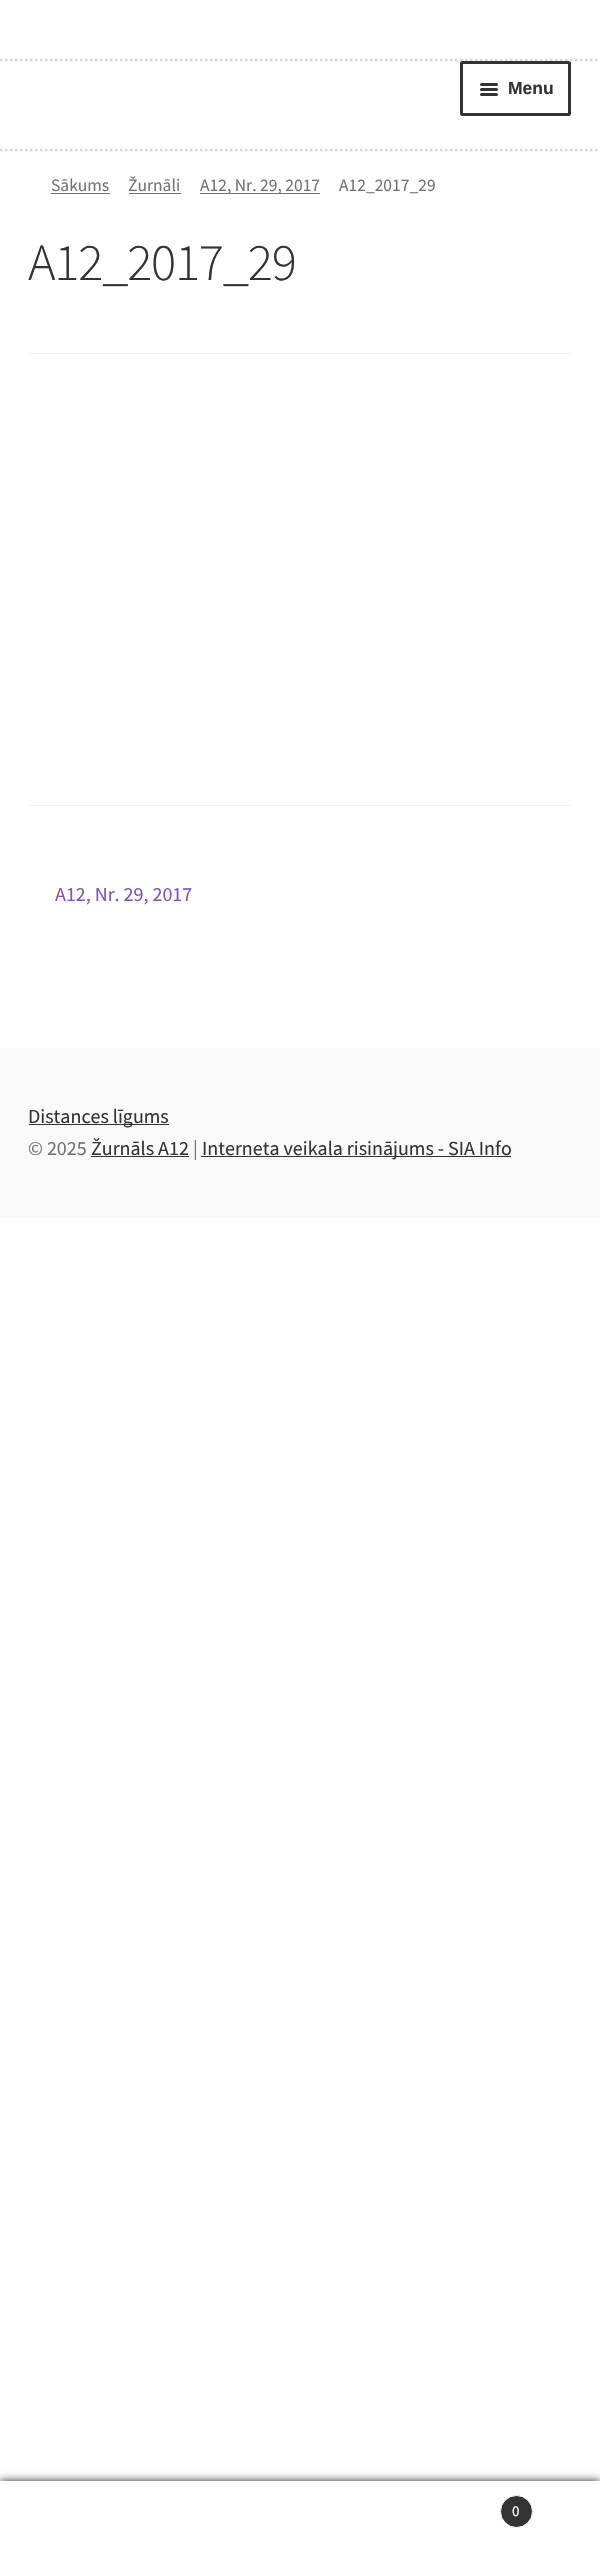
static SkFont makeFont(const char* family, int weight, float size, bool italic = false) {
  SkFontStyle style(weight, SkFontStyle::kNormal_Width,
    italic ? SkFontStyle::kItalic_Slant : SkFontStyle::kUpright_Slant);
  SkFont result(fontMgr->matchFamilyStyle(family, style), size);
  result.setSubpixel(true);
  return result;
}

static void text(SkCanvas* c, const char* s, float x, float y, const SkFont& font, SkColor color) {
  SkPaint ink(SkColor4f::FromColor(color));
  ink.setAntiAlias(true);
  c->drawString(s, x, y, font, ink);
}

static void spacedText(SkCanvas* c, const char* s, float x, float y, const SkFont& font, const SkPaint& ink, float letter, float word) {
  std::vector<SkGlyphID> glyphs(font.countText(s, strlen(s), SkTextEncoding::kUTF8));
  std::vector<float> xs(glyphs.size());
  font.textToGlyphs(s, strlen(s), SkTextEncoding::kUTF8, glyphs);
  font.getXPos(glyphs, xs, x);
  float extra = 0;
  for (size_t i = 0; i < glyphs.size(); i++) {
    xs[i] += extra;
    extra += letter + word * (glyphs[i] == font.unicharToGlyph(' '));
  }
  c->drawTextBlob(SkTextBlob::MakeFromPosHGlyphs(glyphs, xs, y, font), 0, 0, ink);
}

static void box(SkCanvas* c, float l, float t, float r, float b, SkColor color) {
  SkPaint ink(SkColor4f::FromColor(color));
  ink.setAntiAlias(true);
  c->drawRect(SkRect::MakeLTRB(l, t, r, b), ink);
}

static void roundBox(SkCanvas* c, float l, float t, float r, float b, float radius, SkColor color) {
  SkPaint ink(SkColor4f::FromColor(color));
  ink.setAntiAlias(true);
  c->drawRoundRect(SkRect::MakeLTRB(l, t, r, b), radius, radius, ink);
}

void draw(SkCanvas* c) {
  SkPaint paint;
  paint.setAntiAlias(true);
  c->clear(0xffffffff);
  paint.setStyle(SkPaint::kStroke_Style);
  paint.setStrokeWidth(2.5f);
  paint.setColor(0xffd8d8d7);
  paint.setPathEffect(SkDashPathEffect::Make({{2.5f, 2.5f}}, 0));
  c->drawPath(SkPathBuilder().moveTo(0, 150).lineTo(600, 150).detach(), paint);
  paint.setPathEffect(nullptr);
  paint.setPathEffect(SkDashPathEffect::Make({{2.5f, 2.5f}}, 0));
  c->drawPath(SkPathBuilder().moveTo(0, 60).lineTo(600, 60).detach(), paint);
  paint.setPathEffect(nullptr);
  paint.setStyle(SkPaint::kFill_Style);
  paint.setColor(0xffffffff);
  c->drawRoundRect(SkRect::MakeLTRB(461.5f, 62.5f, 569.5f, 114.5f), 1, 1, paint);
  paint.setStyle(SkPaint::kStroke_Style);
  paint.setStrokeWidth(3);
  paint.setColor(0xff333333);
  c->drawRoundRect(SkRect::MakeLTRB(461.5f, 62.5f, 569.5f, 114.5f), 1, 1, paint);
  roundBox(c, 480, 83, 498, 86, 1.5f, 0xff333333);
  roundBox(c, 480, 88, 498, 91, 1.5f, 0xff333333);
  SkFont face1 = makeFont("Liberation Sans", 700, 17.5f);
  text(c, "Menu", 508, 94, face1, 0xff333333);
  roundBox(c, 480, 93, 498, 96, 1.5f, 0xff333333);
  SkFont face2 = makeFont("Source Sans Pro", 400, 17.5f);
  text(c, "Sākums", 51, 191, face2, 0xff727272);
  box(c, 51, 193, 110, 194, 0xff727272);
  text(c, "Žurnāli", 128, 191, face2, 0xff727272);
  box(c, 129, 193, 181, 194, 0xff727272);
  box(c, 200, 193, 320, 194, 0xff727272);
  text(c, "A12, Nr. 29, 2017", 200, 191, face2, 0xff727272);
  text(c, "A12_2017_29", 339, 191, face2, 0xff727272);
  box(c, 29, 353, 571, 354, 0xfff2f2f2);
  SkFont face3 = makeFont("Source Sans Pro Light", 300, 52.5f);
  paint.setStyle(SkPaint::kFill_Style);
  spacedText(c, "A12_2017_29", 28, 280, face3, paint, -1.25f, 0);
  box(c, 29, 805, 571, 806, 0xfff2f2f2);
  SkFont face4 = makeFont("Source Sans Pro", 400, 20);
  text(c, "A12, Nr. 29, 2017", 55, 901, face4, 0xff7f54b3);
  box(c, 0, 1048, 600, 1218, 0xfff9f9f9);
  box(c, 29, 1124, 169, 1125, 0xff333333);
  text(c, "Distances līgums", 28, 1123, face4, 0xff333333);
  text(c, "© 2025", 28, 1155, face4, 0xff727272);
  text(c, "Žurnāls A12", 91, 1155, face4, 0xff333333);
  box(c, 91, 1156, 189, 1157, 0xff333333);
  text(c, "|", 193, 1155, face4, 0xff727272);
  box(c, 201, 1156, 511, 1157, 0xff333333);
  text(c, "Interneta veikala risinājums - SIA Info", 202, 1155, face4, 0xff333333);
  paint.setColor(0xb3000000);
  paint.setMaskFilter(SkMaskFilter::MakeBlur(kNormal_SkBlurStyle, 4));
  c->drawRect(SkRect::MakeLTRB(0, 2480, 600, 2566), paint);
  paint.setMaskFilter(nullptr);
  box(c, 0, 2481, 600, 2566, 0xffffffff);
  paint.setColor(0xff333333);
  c->drawCircle(516.5f, 2511.5f, 16, paint);
  paint.setStyle(SkPaint::kStroke_Style);
  paint.setStrokeWidth(1);
  paint.setColor(0xffffffff);
  c->drawCircle(516.5f, 2511.5f, 16, paint);
  SkFont face5 = makeFont("Source Sans Pro", 400, 15);
  text(c, "0", 512, 2516, face5, 0xffffffff);
}
